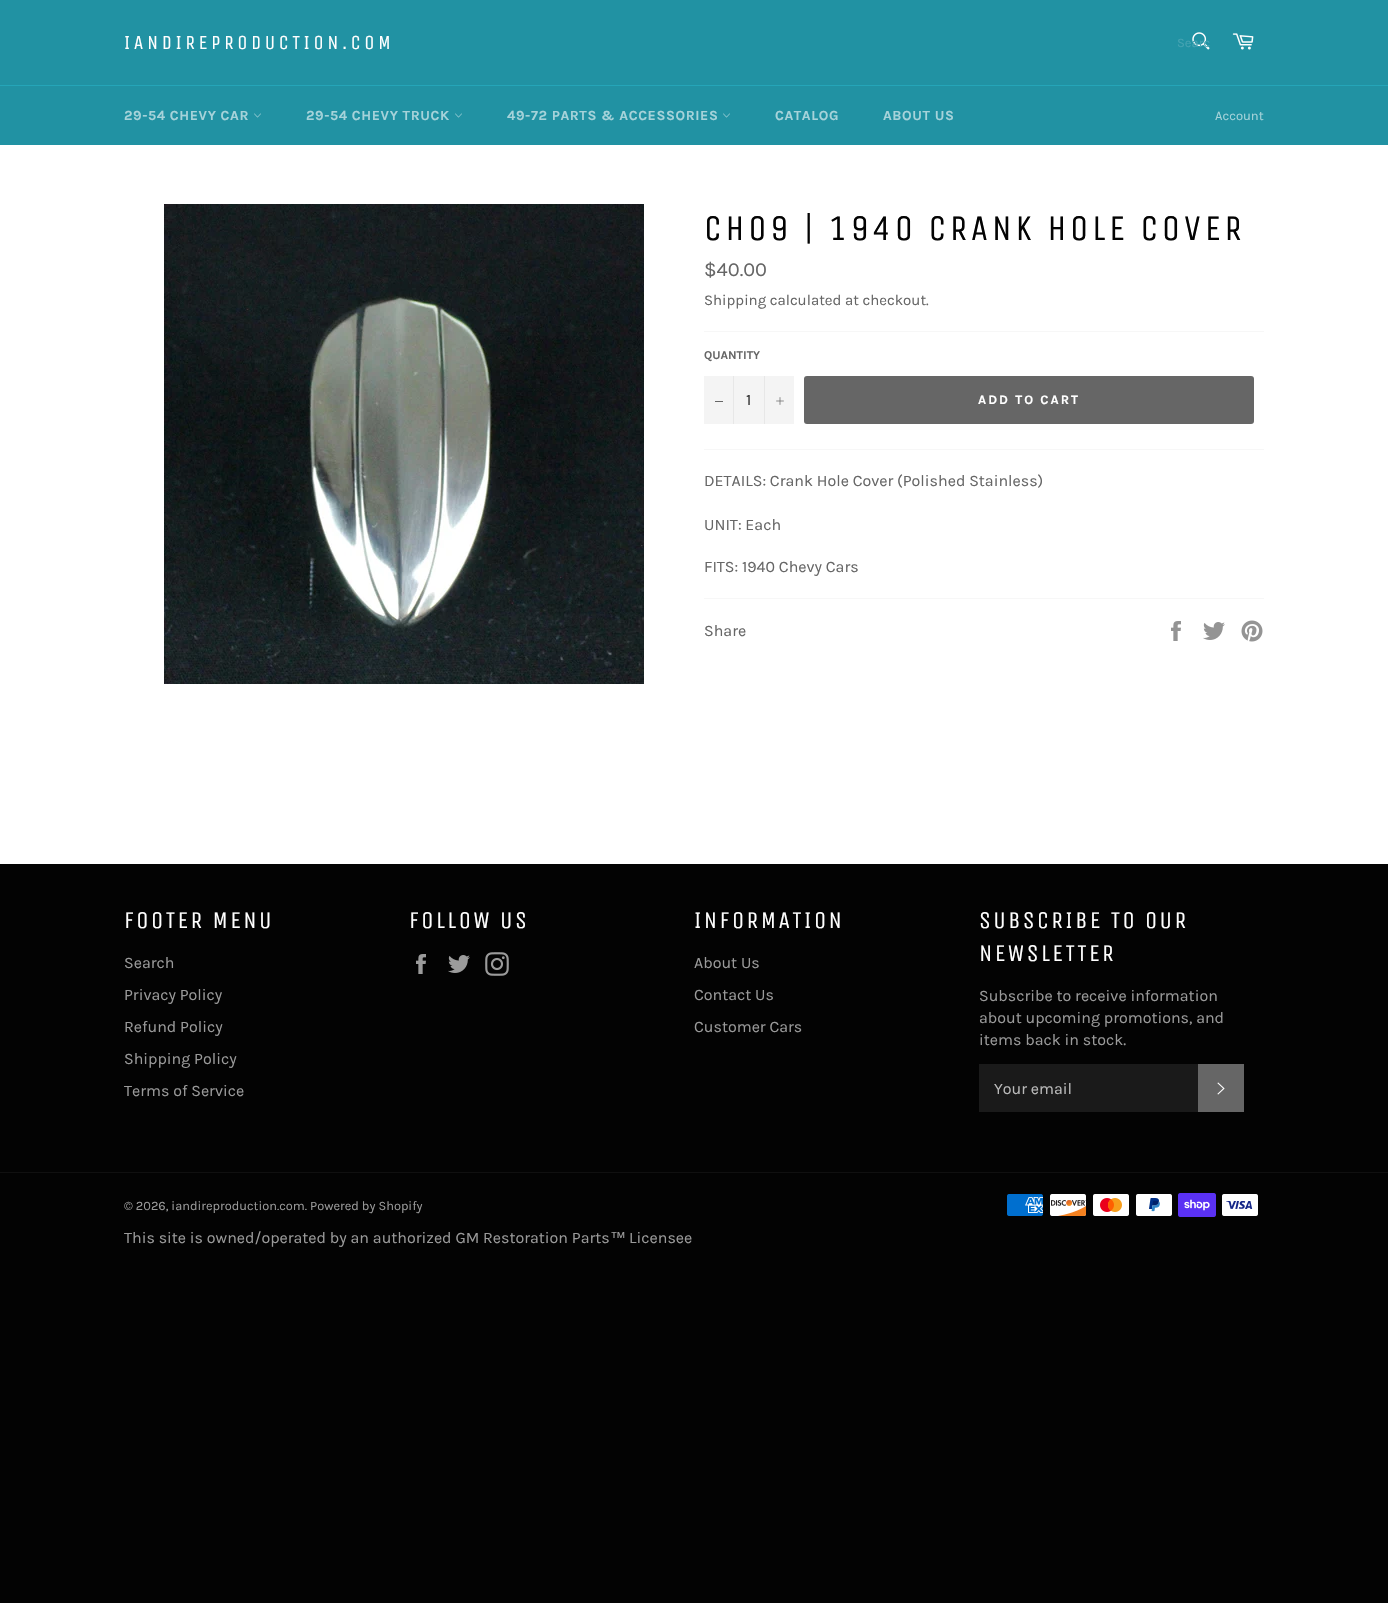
static SkFont makeFont(const char* family, int weight, float size, bool italic = false) {
  SkFontStyle style(weight, SkFontStyle::kNormal_Width,
    italic ? SkFontStyle::kItalic_Slant : SkFontStyle::kUpright_Slant);
  SkFont result(fontMgr->matchFamilyStyle(family, style), size);
  result.setSubpixel(true);
  return result;
}

static void text(SkCanvas* c, const char* s, float x, float y, const SkFont& font, SkColor color) {
  SkPaint ink(SkColor4f::FromColor(color));
  ink.setAntiAlias(true);
  c->drawString(s, x, y, font, ink);
}

static void spacedText(SkCanvas* c, const char* s, float x, float y, const SkFont& font, const SkPaint& ink, float letter, float word) {
  std::vector<SkGlyphID> glyphs(font.countText(s, strlen(s), SkTextEncoding::kUTF8));
  std::vector<float> xs(glyphs.size());
  font.textToGlyphs(s, strlen(s), SkTextEncoding::kUTF8, glyphs);
  font.getXPos(glyphs, xs, x);
  float extra = 0;
  for (size_t i = 0; i < glyphs.size(); i++) {
    xs[i] += extra;
    extra += letter + word * (glyphs[i] == font.unicharToGlyph(' '));
  }
  c->drawTextBlob(SkTextBlob::MakeFromPosHGlyphs(glyphs, xs, y, font), 0, 0, ink);
}

static void box(SkCanvas* c, float l, float t, float r, float b, SkColor color) {
  SkPaint ink(SkColor4f::FromColor(color));
  ink.setAntiAlias(true);
  c->drawRect(SkRect::MakeLTRB(l, t, r, b), ink);
}

static void roundBox(SkCanvas* c, float l, float t, float r, float b, float radius, SkColor color) {
  SkPaint ink(SkColor4f::FromColor(color));
  ink.setAntiAlias(true);
  c->drawRoundRect(SkRect::MakeLTRB(l, t, r, b), radius, radius, ink);
}

static void picture(SkCanvas* c, const char* path, float l, float t, float r, float b) {
  auto image = SkImages::DeferredFromEncodedData(SkData::MakeFromFileName(path));
  c->drawImageRect(image, SkRect::MakeLTRB(l, t, r, b), SkSamplingOptions());
}

void draw(SkCanvas* c) {
  SkPaint paint;
  paint.setAntiAlias(true);
  c->clear(0xff030303);
  box(c, 0, 0, 1388, 85, 0xff2192a3);
  SkFont face1 = makeFont("Unica One", 400, 20);
  paint.setColor(0xffffffff);
  spacedText(c, "IANDIREPRODUCTION.COM", 124, 49, face1, paint, 3.6f, 0);
  picture(c, "img_01.png", 1192, 32, 1210, 50);
  SkFont face2 = makeFont("Karla", 400, 13);
  text(c, "Searc", 1177, 47, face2, 0xff45a3b2);
  picture(c, "img_02.png", 1232, 33, 1254, 50);
  box(c, 0, 86, 1388, 145, 0xff2192a3);
  box(c, 0, 85, 1388, 86, 0xff25a5b8);
  SkFont face3 = makeFont("Karla", 700, 14);
  paint.setColor(0xffa6d3da);
  spacedText(c, "29-54 CHEVY CAR", 124, 120, face3, paint, 0.6f, 0);
  picture(c, "img_03.png", 254, 113, 261, 118);
  spacedText(c, "29-54 CHEVY TRUCK", 306, 120, face3, paint, 0.6f, 0);
  picture(c, "img_03.png", 455, 113, 462, 118);
  spacedText(c, "49-72 PARTS & ACCESSORIES", 507, 120, face3, paint, 0.6f, 0);
  picture(c, "img_03.png", 723, 113, 730, 118);
  spacedText(c, "CATALOG", 775, 120, face3, paint, 0.6f, 0);
  spacedText(c, "ABOUT US", 883, 120, face3, paint, 0.6f, 0);
  text(c, "Account", 1215, 120, face2, 0xffa6d3da);
  box(c, 0, 145, 1388, 864, 0xffffffff);
  picture(c, "img_04.png", 164, 204, 644, 684);
  SkFont face4 = makeFont("Unica One", 400, 36);
  paint.setColor(0xff030303);
  spacedText(c, "CH09 | 1940 CRANK HOLE COVER", 704, 240, face4, paint, 3.6f, 0);
  SkFont face5 = makeFont("Karla", 400, 20);
  text(c, "$40.00", 704, 276, face5, 0xff666666);
  SkFont face6 = makeFont("Karla", 400, 15);
  text(c, "Shipping calculated at checkout.", 704, 305, face6, 0xff666666);
  box(c, 704, 331, 1264, 332, 0xfff7f7f7);
  SkFont face7 = makeFont("Karla", 700, 12);
  text(c, "QUANTITY", 704, 359, face7, 0xff666666);
  box(c, 704, 376, 794, 424, 0xfff4f4f4);
  box(c, 733, 376, 734, 424, 0xffe7e7e7);
  box(c, 715, 401, 723, 402, 0xff666666);
  SkFont face8 = makeFont("Karla", 400, 16);
  text(c, "1", 746, 405, face8, 0xff333333);
  box(c, 764, 376, 765, 424, 0xffe7e7e7);
  picture(c, "img_05.png", 776, 397, 784, 405);
  roundBox(c, 804, 376, 1254, 424, 3, 0xff666666);
  SkFont face9 = makeFont("Karla", 700, 13);
  paint.setColor(0xffffffff);
  spacedText(c, "ADD TO CART", 978, 404, face9, paint, 2, 0);
  box(c, 704, 449, 1264, 450, 0xfff7f7f7);
  text(c, "DETAILS: Crank Hole Cover (Polished Stainless)", 704, 486, face8, 0xff666666);
  text(c, "UNIT: Each", 704, 530, face8, 0xff666666);
  text(c, "FITS: 1940 Chevy Cars", 704, 572, face8, 0xff666666);
  box(c, 704, 598, 1264, 599, 0xfff7f7f7);
  text(c, "Share", 704, 636, face8, 0xff666666);
  picture(c, "img_06.png", 1171, 621, 1181, 641);
  picture(c, "img_07.png", 1203, 622, 1225, 640);
  picture(c, "img_08.png", 1241, 620, 1263, 642);
  SkFont face10 = makeFont("Unica One", 400, 24);
  spacedText(c, "FOOTER MENU", 124, 928, face10, paint, 2.4f, 0);
  text(c, "Search", 124, 968, face8, 0xff9a9a9a);
  text(c, "Privacy Policy", 124, 1000, face8, 0xff9a9a9a);
  text(c, "Refund Policy", 124, 1032, face8, 0xff9a9a9a);
  text(c, "Shipping Policy", 124, 1064, face8, 0xff9a9a9a);
  text(c, "Terms of Service", 124, 1096, face8, 0xff9a9a9a);
  spacedText(c, "FOLLOW US", 409, 928, face10, paint, 2.4f, 0);
  picture(c, "img_09.png", 416, 954, 426, 974);
  picture(c, "img_10.png", 448, 955, 470, 973);
  picture(c, "img_11.png", 485, 952, 509, 976);
  spacedText(c, "INFORMATION", 694, 928, face10, paint, 2.4f, 0);
  text(c, "About Us", 694, 968, face8, 0xff9a9a9a);
  text(c, "Contact Us", 694, 1000, face8, 0xff9a9a9a);
  text(c, "Customer Cars", 694, 1032, face8, 0xff9a9a9a);
  spacedText(c, "SUBSCRIBE TO OUR", 979, 928, face10, paint, 2.4f, 0);
  spacedText(c, "NEWSLETTER", 979, 961, face10, paint, 2.4f, 0);
  text(c, "Subscribe to receive information", 979, 1001, face8, 0xff9a9a9a);
  text(c, "about upcoming promotions, and", 979, 1023, face8, 0xff9a9a9a);
  text(c, "items back in stock.", 979, 1045, face8, 0xff9a9a9a);
  box(c, 979, 1064, 1198, 1112, 0xff1a1a1a);
  text(c, "Your email", 994, 1094, face8, 0xffbababa);
  box(c, 1198, 1064, 1244, 1112, 0xff666666);
  picture(c, "img_12.png", 1217, 1082, 1225, 1095);
  box(c, 0, 1172, 1388, 1173, 0xff101010);
  SkFont face11 = makeFont("Karla", 400, 12.8f);
  text(c, "© 2026, iandireproduction.com. Powered by Shopify", 124, 1210, face11, 0xff9a9a9a);
  picture(c, "img_13.png", 1007, 1194, 1043, 1216);
  picture(c, "img_14.png", 1050, 1194, 1087, 1216);
  picture(c, "img_15.png", 1093, 1194, 1129, 1216);
  picture(c, "img_16.png", 1136, 1194, 1172, 1216);
  picture(c, "img_17.png", 1178, 1193, 1216, 1217);
  picture(c, "img_18.png", 1222, 1194, 1258, 1216);
  text(c, "This site is owned/operated by an authorized GM Restoration Parts", 124, 1243, face8, 0xff9a9a9a);
  SkFont face12 = makeFont("Liberation Sans", 400, 16);
  text(c, "™", 610, 1243, face12, 0xff9a9a9a);
  text(c, "Licensee", 629, 1243, face8, 0xff9a9a9a);
}
